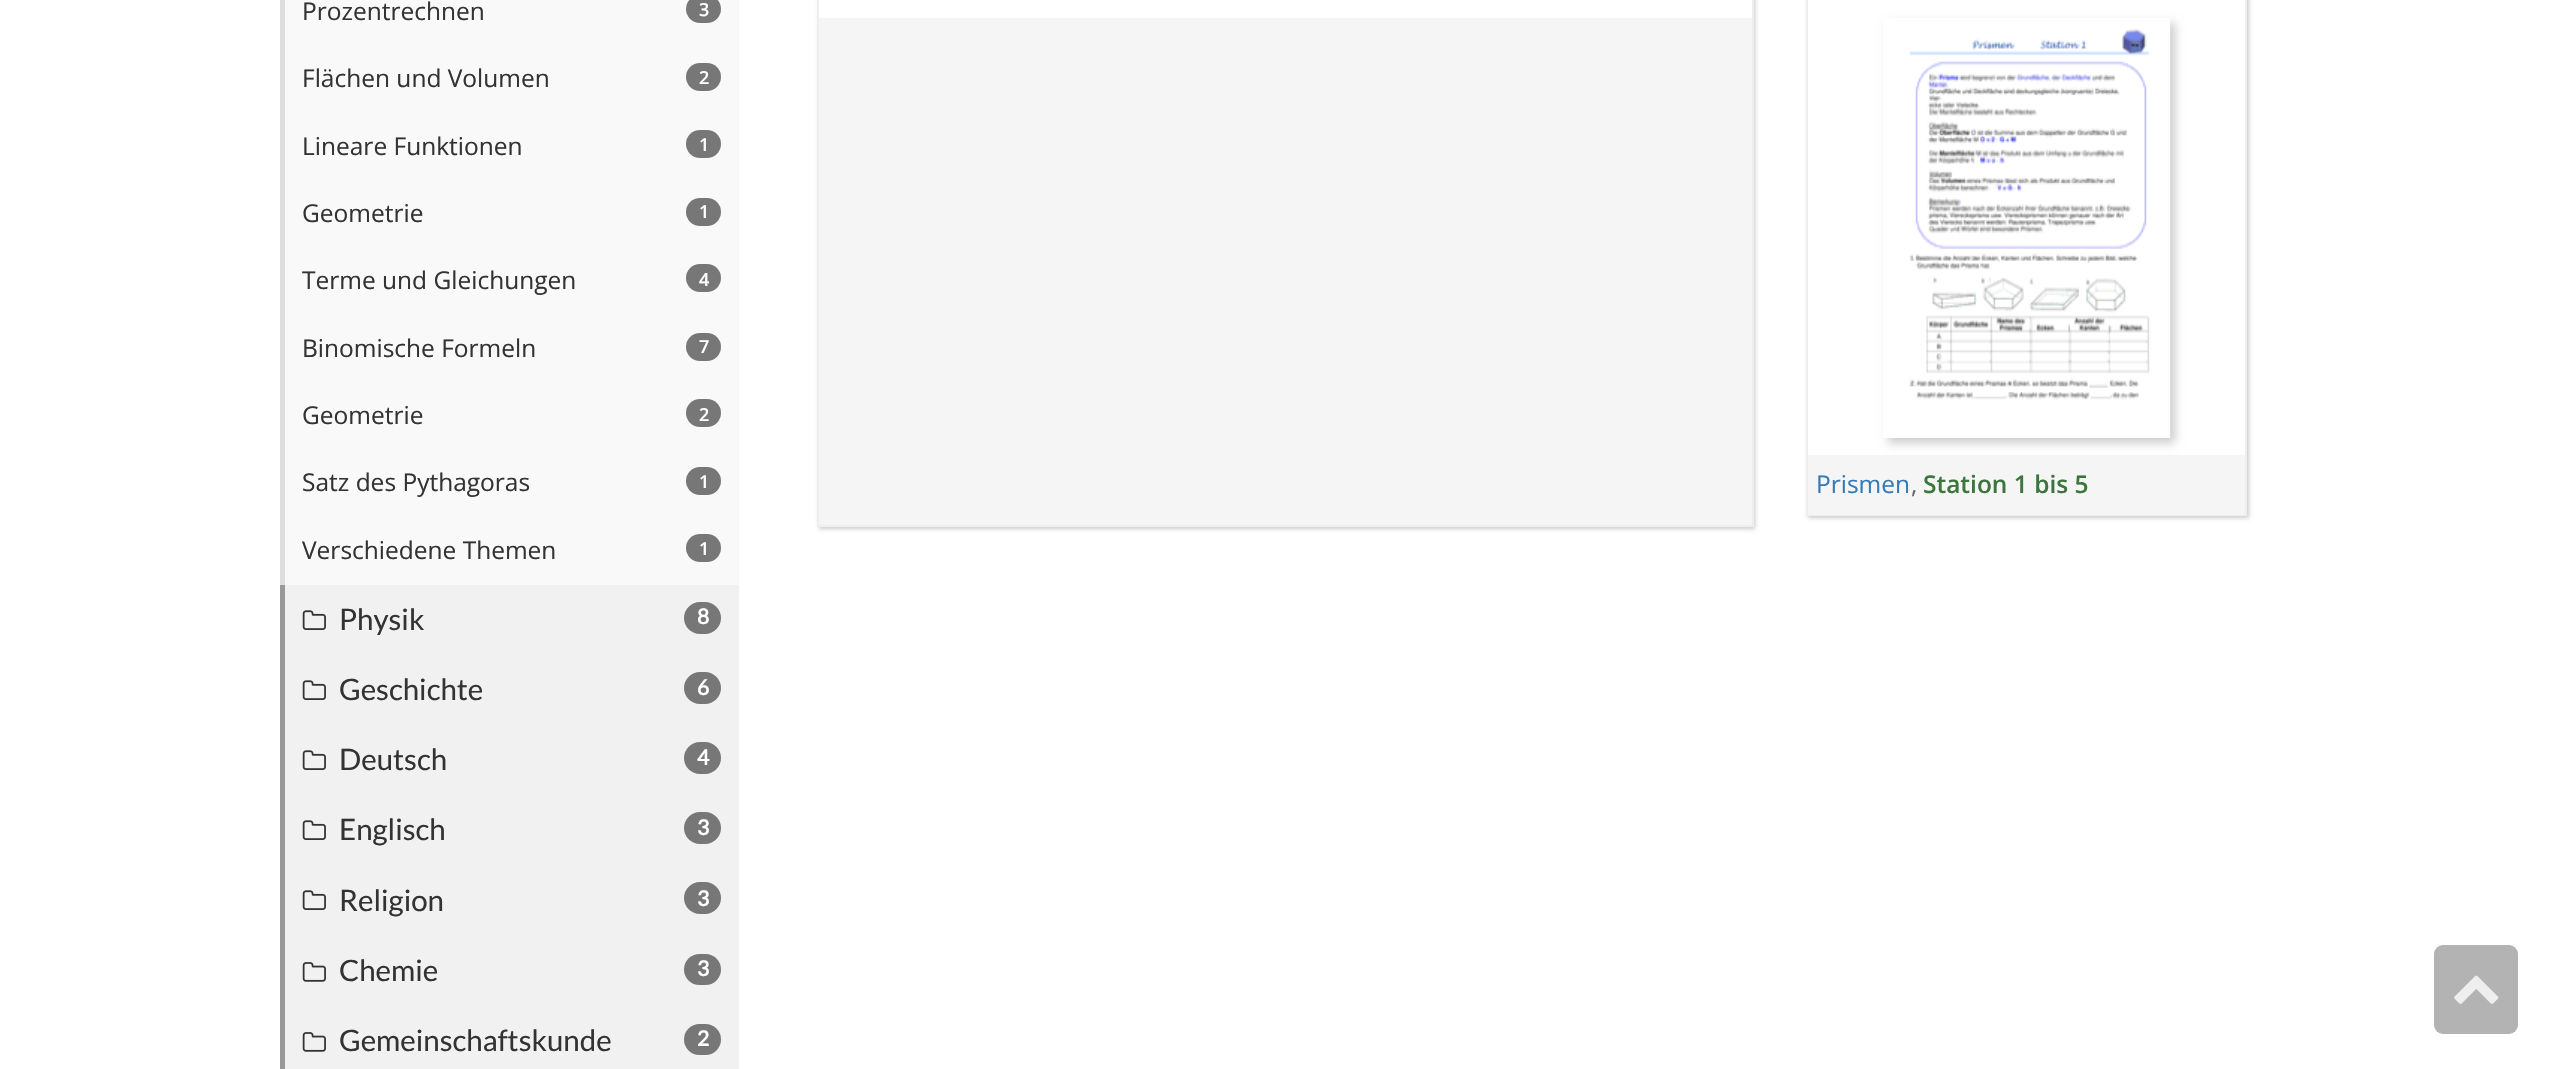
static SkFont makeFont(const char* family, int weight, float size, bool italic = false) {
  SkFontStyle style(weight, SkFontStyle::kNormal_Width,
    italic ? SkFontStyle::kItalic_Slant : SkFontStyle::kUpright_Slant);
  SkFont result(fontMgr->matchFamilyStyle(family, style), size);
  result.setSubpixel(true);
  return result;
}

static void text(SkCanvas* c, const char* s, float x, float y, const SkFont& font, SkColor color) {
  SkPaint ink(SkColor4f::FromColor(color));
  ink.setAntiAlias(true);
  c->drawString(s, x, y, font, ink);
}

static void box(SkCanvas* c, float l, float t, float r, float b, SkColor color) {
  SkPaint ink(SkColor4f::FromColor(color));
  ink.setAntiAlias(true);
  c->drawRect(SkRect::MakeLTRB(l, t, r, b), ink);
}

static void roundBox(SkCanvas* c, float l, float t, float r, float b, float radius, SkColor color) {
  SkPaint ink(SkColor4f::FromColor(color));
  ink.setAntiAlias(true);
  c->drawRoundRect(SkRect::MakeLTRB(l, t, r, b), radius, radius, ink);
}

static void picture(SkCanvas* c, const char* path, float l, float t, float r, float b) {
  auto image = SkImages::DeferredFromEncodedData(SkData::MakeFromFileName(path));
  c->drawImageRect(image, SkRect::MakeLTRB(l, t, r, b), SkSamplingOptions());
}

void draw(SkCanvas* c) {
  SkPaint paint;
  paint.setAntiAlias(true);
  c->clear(0xffffffff);
  box(c, 285, 0, 739, 585, 0xfff9f9f9);
  box(c, 280, 0, 285, 585, 0xffdddddd);
  SkFont face1 = makeFont("Open Sans", 400, 24.5f);
  text(c, "Prozentrechnen", 302, 20, face1, 0xff333333);
  roundBox(c, 686, -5, 721, 23, 14, 0xff777777);
  SkFont face2 = makeFont("Open Sans", 600, 18);
  text(c, "3", 699, 16, face2, 0xffffffff);
  text(c, "Flächen und Volumen", 302, 87, face1, 0xff333333);
  roundBox(c, 686, 63, 721, 91, 14, 0xff777777);
  text(c, "2", 699, 84, face2, 0xffffffff);
  text(c, "Lineare Funktionen", 302, 155, face1, 0xff333333);
  roundBox(c, 686, 130, 721, 158, 14, 0xff777777);
  text(c, "1", 699, 151, face2, 0xffffffff);
  text(c, "Geometrie", 302, 222, face1, 0xff333333);
  roundBox(c, 686, 198, 721, 226, 14, 0xff777777);
  text(c, "1", 699, 218, face2, 0xffffffff);
  text(c, "Terme und Gleichungen", 302, 289, face1, 0xff333333);
  roundBox(c, 686, 264, 721, 292, 14, 0xff777777);
  text(c, "4", 699, 286, face2, 0xffffffff);
  text(c, "Binomische Formeln", 302, 357, face1, 0xff333333);
  roundBox(c, 686, 333, 721, 361, 14, 0xff777777);
  text(c, "7", 699, 353, face2, 0xffffffff);
  text(c, "Geometrie", 302, 424, face1, 0xff333333);
  roundBox(c, 686, 399, 721, 427, 14, 0xff777777);
  text(c, "2", 699, 421, face2, 0xffffffff);
  text(c, "Satz des Pythagoras", 302, 491, face1, 0xff333333);
  roundBox(c, 686, 467, 721, 495, 14, 0xff777777);
  text(c, "1", 699, 488, face2, 0xffffffff);
  text(c, "Verschiedene Themen", 302, 559, face1, 0xff333333);
  roundBox(c, 686, 534, 721, 562, 14, 0xff777777);
  text(c, "1", 699, 555, face2, 0xffffffff);
  box(c, 285, 585, 739, 1069, 0xfff1f1f1);
  box(c, 280, 585, 285, 1069, 0xff999999);
  picture(c, "img_01.png", 302, 610, 326, 630);
  SkFont face3 = makeFont("Lato", 400, 29.5f);
  text(c, "Physik", 339, 630, face3, 0xff333333);
  roundBox(c, 684, 602, 721, 634, 16, 0xff777777);
  SkFont face4 = makeFont("Lato", 700, 21);
  text(c, "8", 697, 624, face4, 0xffffffff);
  picture(c, "img_01.png", 302, 680, 326, 700);
  text(c, "Geschichte", 339, 700, face3, 0xff333333);
  roundBox(c, 684, 672, 721, 704, 16, 0xff777777);
  text(c, "6", 697, 695, face4, 0xffffffff);
  picture(c, "img_01.png", 302, 750, 326, 770);
  text(c, "Deutsch", 339, 770, face3, 0xff333333);
  roundBox(c, 684, 742, 721, 774, 16, 0xff777777);
  text(c, "4", 697, 765, face4, 0xffffffff);
  picture(c, "img_01.png", 302, 820, 326, 840);
  text(c, "Englisch", 339, 840, face3, 0xff333333);
  roundBox(c, 684, 812, 721, 844, 16, 0xff777777);
  text(c, "3", 697, 835, face4, 0xffffffff);
  picture(c, "img_01.png", 302, 890, 326, 910);
  text(c, "Religion", 339, 911, face3, 0xff333333);
  roundBox(c, 684, 882, 721, 914, 16, 0xff777777);
  text(c, "3", 697, 906, face4, 0xffffffff);
  picture(c, "img_02.png", 302, 962, 326, 982);
  text(c, "Chemie", 339, 981, face3, 0xff333333);
  roundBox(c, 684, 954, 721, 985, 15.5f, 0xff777777);
  text(c, "3", 697, 976, face4, 0xffffffff);
  picture(c, "img_02.png", 302, 1032, 326, 1052);
  text(c, "Gemeinschaftskunde", 339, 1051, face3, 0xff333333);
  roundBox(c, 684, 1024, 721, 1055, 15.5f, 0xff777777);
  text(c, "2", 697, 1046, face4, 0xffffffff);
  c->save();
  c->clipPath(SkPathBuilder(SkPathFillType::kEvenOdd).moveTo(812, 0).lineTo(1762, 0).lineTo(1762, 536).lineTo(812, 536).close().moveTo(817, -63).lineTo(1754, -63).lineTo(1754, 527).lineTo(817, 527).close().detach(), true);
  paint.setColor(0x33000000);
  paint.setMaskFilter(SkMaskFilter::MakeBlur(kNormal_SkBlurStyle, 2));
  c->drawRect(SkRect::MakeLTRB(819, -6, 1755, 529), paint);
  paint.setMaskFilter(nullptr);
  c->restore();
  paint.setStyle(SkPaint::kStroke_Style);
  paint.setStrokeWidth(2);
  paint.setColor(0xffeeeeee);
  c->drawRect(SkRect::MakeLTRB(818, -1, 1753, 526), paint);
  box(c, 819, 18, 1752, 525, 0xfff5f5f5);
  c->save();
  c->clipPath(SkPathBuilder(SkPathFillType::kEvenOdd).moveTo(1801, 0).lineTo(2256, 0).lineTo(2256, 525).lineTo(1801, 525).close().moveTo(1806, -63).lineTo(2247, -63).lineTo(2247, 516).lineTo(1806, 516).close().detach(), true);
  paint.setStyle(SkPaint::kFill_Style);
  paint.setColor(0x33000000);
  paint.setMaskFilter(SkMaskFilter::MakeBlur(kNormal_SkBlurStyle, 2));
  c->drawRect(SkRect::MakeLTRB(1808, -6, 2249, 518), paint);
  paint.setMaskFilter(nullptr);
  c->restore();
  paint.setStyle(SkPaint::kStroke_Style);
  paint.setColor(0xffeeeeee);
  c->drawRect(SkRect::MakeLTRB(1807, -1, 2246, 515), paint);
  c->save();
  c->clipPath(SkPathBuilder(SkPathFillType::kEvenOdd).moveTo(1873, 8).lineTo(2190, 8).lineTo(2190, 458).lineTo(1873, 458).close().moveTo(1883, 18).lineTo(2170, 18).lineTo(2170, 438).lineTo(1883, 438).close().detach(), true);
  paint.setStyle(SkPaint::kFill_Style);
  paint.setColor(0x33000000);
  paint.setMaskFilter(SkMaskFilter::MakeBlur(kNormal_SkBlurStyle, 4.5f));
  c->drawRect(SkRect::MakeLTRB(1888, 23, 2175, 443), paint);
  paint.setMaskFilter(nullptr);
  c->restore();
  picture(c, "img_03.png", 1889, 23, 2171, 438);
  box(c, 1808, 455, 2245, 515, 0xfff5f5f5);
  text(c, "Prismen", 1816, 493, face1, 0xff337ab7);
  text(c, ",", 1911, 493, face1, 0xff666666);
  SkFont face5 = makeFont("Open Sans", 600, 24.5f);
  text(c, "Station 1 bis 5", 1923, 493, face5, 0xff3c763d);
  roundBox(c, 2434, 945, 2518, 1034, 9, 0xffb3b3b3);
  picture(c, "img_04.png", 2454, 975, 2499, 1004);
}
